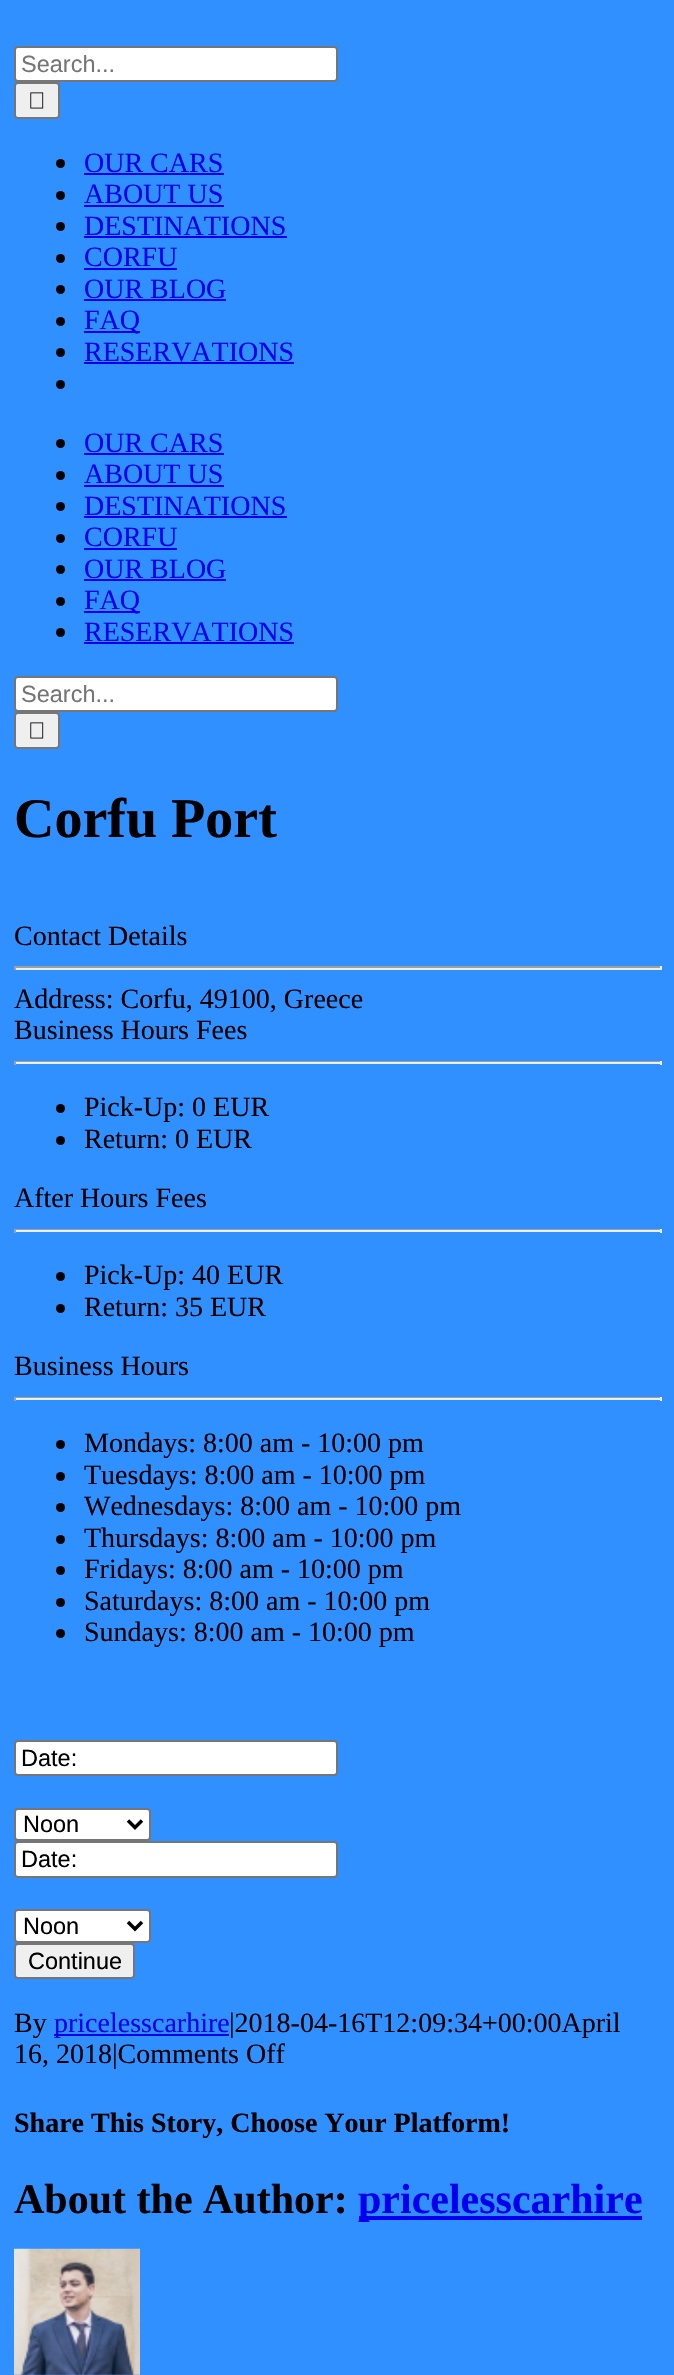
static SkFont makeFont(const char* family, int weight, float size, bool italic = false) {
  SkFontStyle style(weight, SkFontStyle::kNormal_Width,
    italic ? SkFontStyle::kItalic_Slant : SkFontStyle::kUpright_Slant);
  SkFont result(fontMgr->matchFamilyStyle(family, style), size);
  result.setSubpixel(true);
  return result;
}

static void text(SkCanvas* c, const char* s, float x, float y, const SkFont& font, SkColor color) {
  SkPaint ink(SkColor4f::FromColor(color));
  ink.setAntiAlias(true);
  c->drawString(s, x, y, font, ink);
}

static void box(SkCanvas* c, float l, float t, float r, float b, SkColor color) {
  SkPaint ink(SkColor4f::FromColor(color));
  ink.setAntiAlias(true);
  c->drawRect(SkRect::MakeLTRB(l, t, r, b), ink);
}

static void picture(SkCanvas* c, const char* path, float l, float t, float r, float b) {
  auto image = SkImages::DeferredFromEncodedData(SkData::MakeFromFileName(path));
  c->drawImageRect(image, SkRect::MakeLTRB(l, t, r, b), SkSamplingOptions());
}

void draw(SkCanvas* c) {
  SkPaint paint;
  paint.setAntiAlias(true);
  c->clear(0xff3090ff);
  paint.setColor(0xffffffff);
  c->drawRoundRect(SkRect::MakeLTRB(15, 47, 337, 81), 3, 3, paint);
  paint.setStyle(SkPaint::kStroke_Style);
  paint.setStrokeWidth(2);
  paint.setColor(0xff767676);
  c->drawRoundRect(SkRect::MakeLTRB(15, 47, 337, 81), 3, 3, paint);
  SkFont face1 = makeFont("Liberation Sans", 400, 23.5f);
  text(c, "Search...", 21, 72, face1, 0xff757575);
  paint.setStyle(SkPaint::kFill_Style);
  paint.setColor(0xffefefef);
  c->drawRoundRect(SkRect::MakeLTRB(15, 83, 59, 118), 3, 3, paint);
  paint.setStyle(SkPaint::kStroke_Style);
  paint.setColor(0xff767676);
  c->drawRoundRect(SkRect::MakeLTRB(15, 83, 59, 118), 3, 3, paint);
  picture(c, "img_01.png", 30, 92, 44, 109);
  paint.setStyle(SkPaint::kFill_Style);
  paint.setColor(0xff000000);
  c->drawCircle(60.5f, 163.5f, 4.5f, paint);
  SkFont face2 = makeFont("Liberation Serif", 400, 28);
  text(c, "OUR CARS", 84, 172, face2, 0xff0000ee);
  box(c, 84, 173, 224, 175, 0xff0000ee);
  c->drawCircle(60.5f, 195.5f, 4.5f, paint);
  text(c, "ABOUT US", 84, 203, face2, 0xff0000ee);
  box(c, 84, 205, 224, 207, 0xff0000ee);
  c->drawCircle(60.5f, 226.5f, 4.5f, paint);
  text(c, "DESTINATIONS", 84, 235, face2, 0xff0000ee);
  box(c, 84, 236, 287, 238, 0xff0000ee);
  c->drawCircle(60.5f, 258.5f, 4.5f, paint);
  text(c, "CORFU", 84, 266, face2, 0xff0000ee);
  box(c, 84, 268, 177, 270, 0xff0000ee);
  c->drawCircle(60.5f, 289.5f, 4.5f, paint);
  text(c, "OUR BLOG", 84, 298, face2, 0xff0000ee);
  box(c, 84, 299, 226, 301, 0xff0000ee);
  c->drawCircle(60.5f, 321.5f, 4.5f, paint);
  box(c, 84, 331, 140, 333, 0xff0000ee);
  text(c, "FAQ", 84, 329, face2, 0xff0000ee);
  c->drawCircle(60.5f, 352.5f, 4.5f, paint);
  text(c, "RESERVATIONS", 84, 361, face2, 0xff0000ee);
  box(c, 84, 362, 294, 364, 0xff0000ee);
  c->drawCircle(60.5f, 384.5f, 4.5f, paint);
  c->drawCircle(60.5f, 443.5f, 4.5f, paint);
  text(c, "OUR CARS", 84, 452, face2, 0xff0000ee);
  box(c, 84, 453, 224, 455, 0xff0000ee);
  c->drawCircle(60.5f, 475.5f, 4.5f, paint);
  text(c, "ABOUT US", 84, 483, face2, 0xff0000ee);
  box(c, 84, 485, 224, 487, 0xff0000ee);
  c->drawCircle(60.5f, 506.5f, 4.5f, paint);
  text(c, "DESTINATIONS", 84, 515, face2, 0xff0000ee);
  box(c, 84, 516, 287, 518, 0xff0000ee);
  c->drawCircle(60.5f, 538.5f, 4.5f, paint);
  text(c, "CORFU", 84, 546, face2, 0xff0000ee);
  box(c, 84, 548, 177, 550, 0xff0000ee);
  c->drawCircle(60.5f, 569.5f, 4.5f, paint);
  text(c, "OUR BLOG", 84, 578, face2, 0xff0000ee);
  box(c, 84, 579, 226, 581, 0xff0000ee);
  c->drawCircle(60.5f, 601.5f, 4.5f, paint);
  box(c, 84, 611, 140, 613, 0xff0000ee);
  text(c, "FAQ", 84, 609, face2, 0xff0000ee);
  c->drawCircle(60.5f, 632.5f, 4.5f, paint);
  text(c, "RESERVATIONS", 84, 641, face2, 0xff0000ee);
  box(c, 84, 642, 294, 644, 0xff0000ee);
  paint.setColor(0xffffffff);
  c->drawRoundRect(SkRect::MakeLTRB(15, 677, 337, 711), 3, 3, paint);
  paint.setStyle(SkPaint::kStroke_Style);
  paint.setColor(0xff767676);
  c->drawRoundRect(SkRect::MakeLTRB(15, 677, 337, 711), 3, 3, paint);
  text(c, "Search...", 21, 702, face1, 0xff757575);
  paint.setStyle(SkPaint::kFill_Style);
  paint.setColor(0xffefefef);
  c->drawRoundRect(SkRect::MakeLTRB(15, 713, 59, 748), 3, 3, paint);
  paint.setStyle(SkPaint::kStroke_Style);
  paint.setColor(0xff767676);
  c->drawRoundRect(SkRect::MakeLTRB(15, 713, 59, 748), 3, 3, paint);
  picture(c, "img_01.png", 30, 722, 44, 739);
  SkFont face3 = makeFont("Liberation Serif", 700, 56);
  text(c, "Corfu Port", 14, 837, face3, 0xff000000);
  text(c, "Contact Details", 14, 945, face2, 0xff000000);
  box(c, 14, 966, 662, 968, 0xff9f9f9f);
  box(c, 660, 966, 662, 970, 0xffeeeeee);
  box(c, 14, 968, 662, 970, 0xffeeeeee);
  box(c, 14, 966, 16, 970, 0xff9f9f9f);
  text(c, "Address: Corfu, 49100, Greece", 14, 1008, face2, 0xff000000);
  text(c, "Business Hours Fees", 14, 1039, face2, 0xff000000);
  box(c, 14, 1061, 662, 1062, 0xff9f9f9f);
  box(c, 660, 1061, 662, 1065, 0xffeeeeee);
  box(c, 14, 1062, 662, 1064, 0xffeeeeee);
  box(c, 14, 1061, 16, 1065, 0xff9f9f9f);
  paint.setStyle(SkPaint::kFill_Style);
  paint.setColor(0xff000000);
  c->drawCircle(60.5f, 1108.5f, 4.5f, paint);
  text(c, "Pick-Up: 0 EUR", 84, 1116, face2, 0xff000000);
  c->drawCircle(60.5f, 1140.5f, 4.5f, paint);
  text(c, "Return: 0 EUR", 84, 1148, face2, 0xff000000);
  text(c, "After Hours Fees", 14, 1207, face2, 0xff000000);
  box(c, 14, 1229, 662, 1230, 0xff9f9f9f);
  box(c, 660, 1229, 662, 1233, 0xffeeeeee);
  box(c, 14, 1230, 662, 1232, 0xffeeeeee);
  box(c, 14, 1229, 16, 1233, 0xff9f9f9f);
  c->drawCircle(60.5f, 1276.5f, 4.5f, paint);
  text(c, "Pick-Up: 40 EUR", 84, 1284, face2, 0xff000000);
  c->drawCircle(60.5f, 1308.5f, 4.5f, paint);
  text(c, "Return: 35 EUR", 84, 1316, face2, 0xff000000);
  text(c, "Business Hours", 14, 1375, face2, 0xff000000);
  box(c, 14, 1397, 662, 1398, 0xff9f9f9f);
  box(c, 660, 1397, 662, 1401, 0xffeeeeee);
  box(c, 14, 1398, 662, 1400, 0xffeeeeee);
  box(c, 14, 1397, 16, 1401, 0xff9f9f9f);
  c->drawCircle(60.5f, 1444.5f, 4.5f, paint);
  text(c, "Mondays: 8:00 am - 10:00 pm", 84, 1452, face2, 0xff000000);
  c->drawCircle(60.5f, 1476.5f, 4.5f, paint);
  text(c, "Tuesdays: 8:00 am - 10:00 pm", 84, 1484, face2, 0xff000000);
  c->drawCircle(60.5f, 1507.5f, 4.5f, paint);
  text(c, "Wednesdays: 8:00 am - 10:00 pm", 84, 1515, face2, 0xff000000);
  c->drawCircle(60.5f, 1539.5f, 4.5f, paint);
  text(c, "Thursdays: 8:00 am - 10:00 pm", 84, 1547, face2, 0xff000000);
  c->drawCircle(60.5f, 1570.5f, 4.5f, paint);
  text(c, "Fridays: 8:00 am - 10:00 pm", 84, 1578, face2, 0xff000000);
  c->drawCircle(60.5f, 1602.5f, 4.5f, paint);
  text(c, "Saturdays: 8:00 am - 10:00 pm", 84, 1610, face2, 0xff000000);
  c->drawCircle(60.5f, 1633.5f, 4.5f, paint);
  text(c, "Sundays: 8:00 am - 10:00 pm", 84, 1641, face2, 0xff000000);
  paint.setColor(0xffffffff);
  c->drawRoundRect(SkRect::MakeLTRB(15, 1741, 337, 1775), 3, 3, paint);
  paint.setStyle(SkPaint::kStroke_Style);
  paint.setColor(0xff767676);
  c->drawRoundRect(SkRect::MakeLTRB(15, 1741, 337, 1775), 3, 3, paint);
  text(c, "Date:", 21, 1766, face1, 0xff000000);
  paint.setStyle(SkPaint::kFill_Style);
  paint.setColor(0xffffffff);
  c->drawRoundRect(SkRect::MakeLTRB(15, 1809, 150, 1840), 3, 3, paint);
  paint.setStyle(SkPaint::kStroke_Style);
  paint.setColor(0xff767676);
  c->drawRoundRect(SkRect::MakeLTRB(15, 1809, 150, 1840), 3, 3, paint);
  paint.setStrokeWidth(3.5f);
  paint.setColor(0xff000000);
  c->drawPath(SkPathBuilder().moveTo(128, 1820.5f).lineTo(135, 1827.5f).lineTo(142, 1820.5f).detach(), paint);
  text(c, "Noon", 23, 1832, face1, 0xff000000);
  paint.setStyle(SkPaint::kFill_Style);
  paint.setColor(0xffffffff);
  c->drawRoundRect(SkRect::MakeLTRB(15, 1842, 337, 1877), 3, 3, paint);
  paint.setStyle(SkPaint::kStroke_Style);
  paint.setStrokeWidth(2);
  paint.setColor(0xff767676);
  c->drawRoundRect(SkRect::MakeLTRB(15, 1842, 337, 1877), 3, 3, paint);
  text(c, "Date:", 21, 1867, face1, 0xff000000);
  paint.setStyle(SkPaint::kFill_Style);
  paint.setColor(0xffffffff);
  c->drawRoundRect(SkRect::MakeLTRB(15, 1910, 150, 1942), 3, 3, paint);
  paint.setStyle(SkPaint::kStroke_Style);
  paint.setColor(0xff767676);
  c->drawRoundRect(SkRect::MakeLTRB(15, 1910, 150, 1942), 3, 3, paint);
  paint.setStrokeWidth(3.5f);
  paint.setColor(0xff000000);
  c->drawPath(SkPathBuilder().moveTo(128, 1922).lineTo(135, 1929).lineTo(142, 1922).detach(), paint);
  text(c, "Noon", 23, 1934, face1, 0xff000000);
  paint.setStyle(SkPaint::kFill_Style);
  paint.setColor(0xffefefef);
  c->drawRoundRect(SkRect::MakeLTRB(15, 1944, 134, 1978), 3, 3, paint);
  paint.setStyle(SkPaint::kStroke_Style);
  paint.setStrokeWidth(2);
  paint.setColor(0xff767676);
  c->drawRoundRect(SkRect::MakeLTRB(15, 1944, 134, 1978), 3, 3, paint);
  text(c, "Continue", 28, 1969, face1, 0xff000000);
  text(c, "By", 14, 2032, face2, 0xff000000);
  box(c, 54, 2034, 229, 2036, 0xff0000ee);
  text(c, "pricelesscarhire", 54, 2032, face2, 0xff0000ee);
  text(c, "|2018-04-16T12:09:34+00:00April", 229, 2032, face2, 0xff000000);
  text(c, "16, 2018|Comments Off", 14, 2063, face2, 0xff000000);
  SkFont face4 = makeFont("Liberation Serif", 700, 28);
  text(c, "Share This Story, Choose Your Platform!", 14, 2132, face4, 0xff000000);
  SkFont face5 = makeFont("Liberation Serif", 700, 42);
  text(c, "About the Author:", 14, 2213, face5, 0xff000000);
  box(c, 359, 2216, 642, 2220, 0xff0000ee);
  text(c, "pricelesscarhire", 358, 2213, face5, 0xff0000ee);
  picture(c, "img_02.png", 14, 2248, 140, 2375);
}
